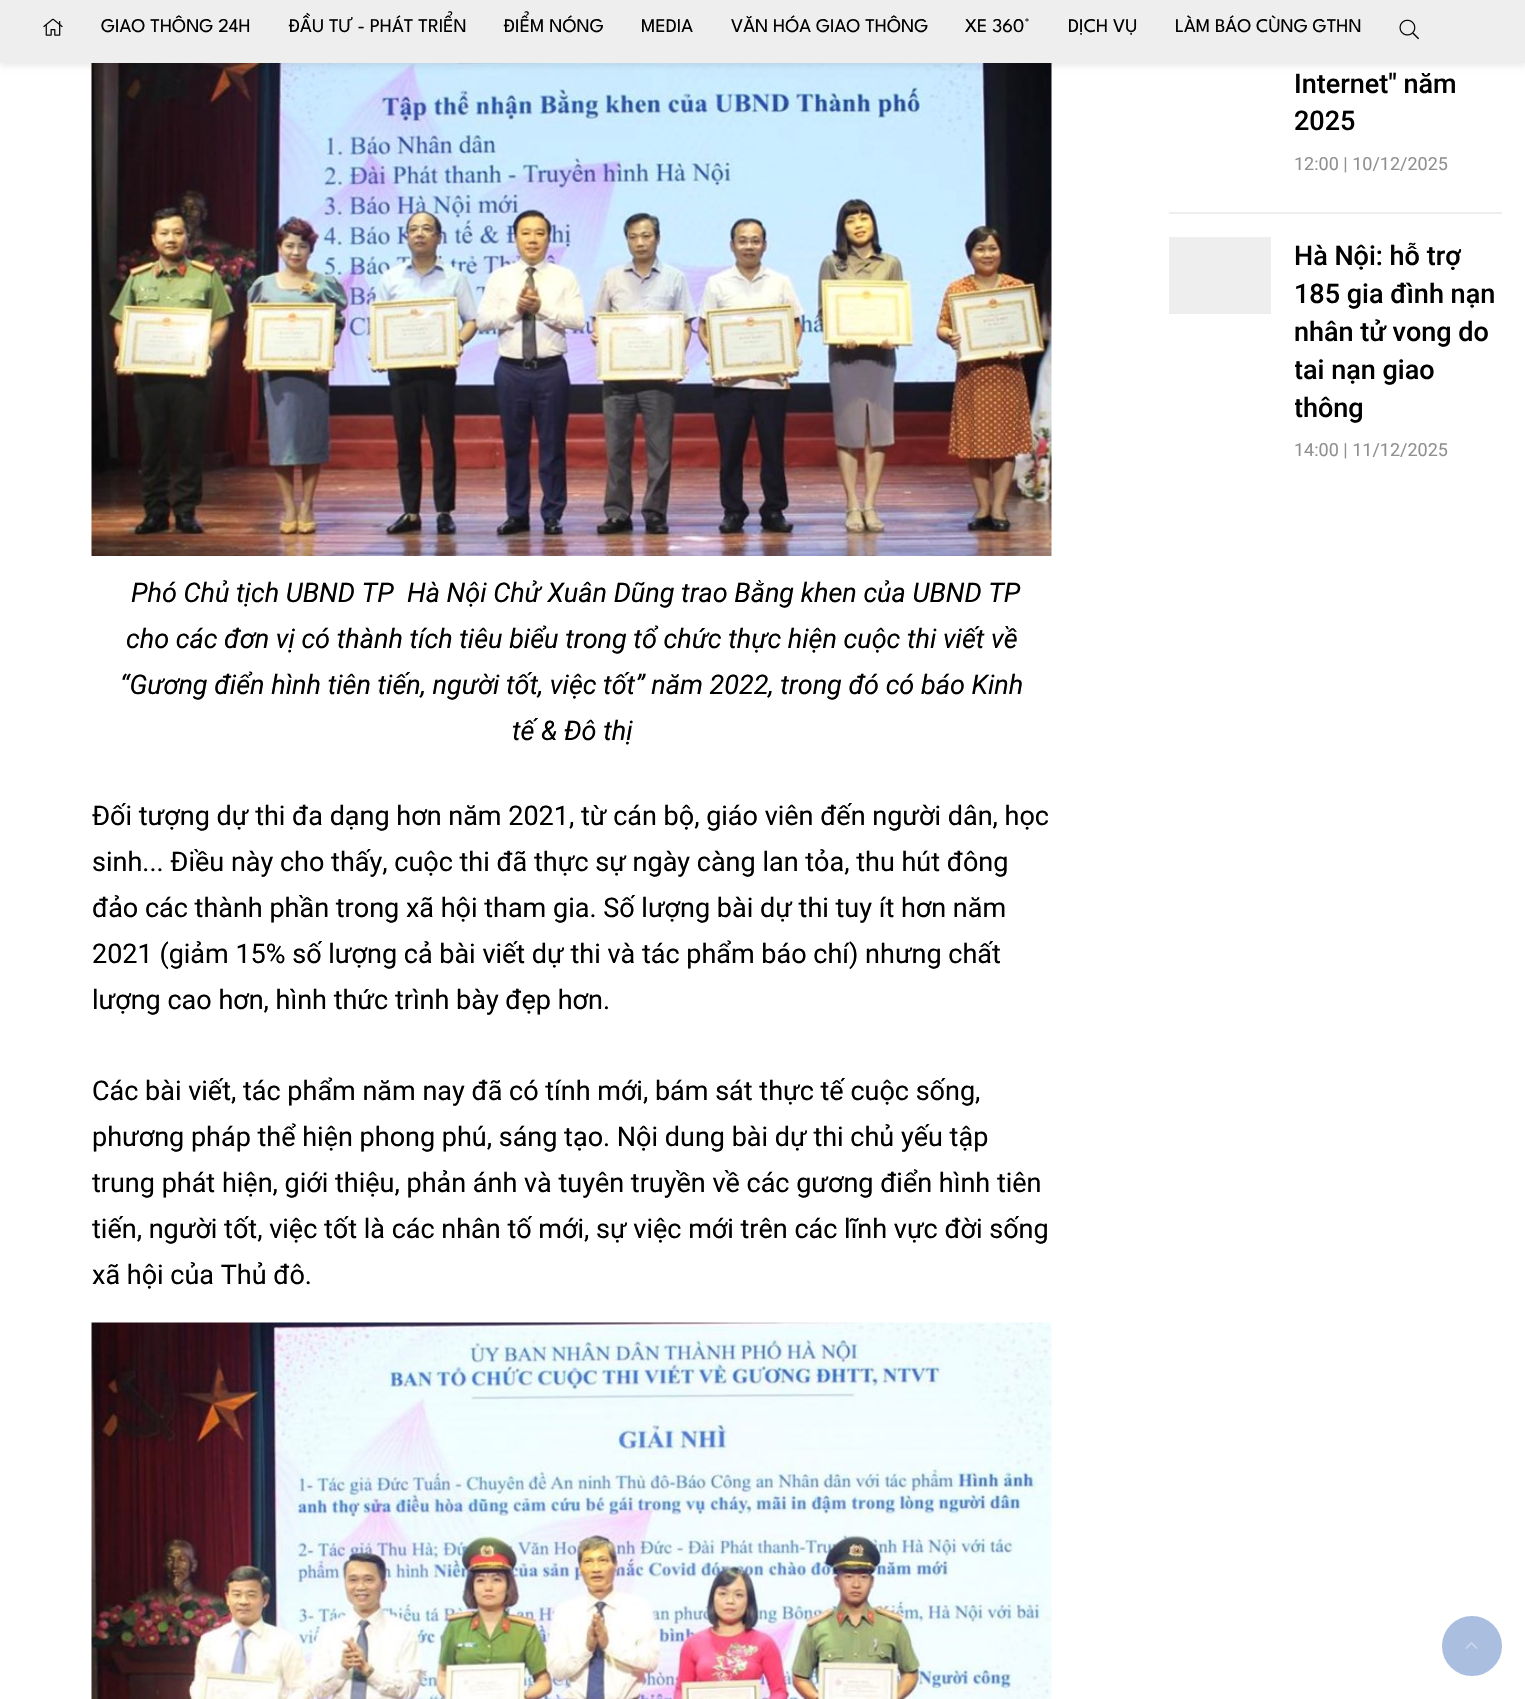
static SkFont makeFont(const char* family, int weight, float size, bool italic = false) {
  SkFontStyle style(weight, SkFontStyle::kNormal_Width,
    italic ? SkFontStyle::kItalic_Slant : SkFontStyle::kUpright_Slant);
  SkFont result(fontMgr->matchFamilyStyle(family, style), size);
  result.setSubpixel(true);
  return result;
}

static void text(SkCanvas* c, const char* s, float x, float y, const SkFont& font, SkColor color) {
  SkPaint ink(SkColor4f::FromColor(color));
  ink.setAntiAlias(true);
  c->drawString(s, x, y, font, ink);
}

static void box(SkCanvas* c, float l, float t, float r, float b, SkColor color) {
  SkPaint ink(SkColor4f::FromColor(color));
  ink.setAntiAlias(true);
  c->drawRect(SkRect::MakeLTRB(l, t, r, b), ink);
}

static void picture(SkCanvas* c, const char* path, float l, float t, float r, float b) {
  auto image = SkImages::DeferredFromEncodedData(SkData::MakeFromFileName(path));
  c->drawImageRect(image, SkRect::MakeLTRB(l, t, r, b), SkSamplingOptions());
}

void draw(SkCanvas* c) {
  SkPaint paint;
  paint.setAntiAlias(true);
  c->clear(0xffffffff);
  picture(c, "img_03.png", 91, 63, 1052, 556);
  paint.setColor(0x14000000);
  paint.setMaskFilter(SkMaskFilter::MakeBlur(kNormal_SkBlurStyle, 3));
  c->drawRect(SkRect::MakeLTRB(0, 3, 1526, 66), paint);
  paint.setMaskFilter(nullptr);
  box(c, 0, 0, 1525, 63, 0xffeeeeee);
  picture(c, "img_01.png", 43, 18, 63, 36);
  SkFont face1 = makeFont("League Spartan", 400, 19.5f);
  text(c, "GIAO THÔNG 24H", 101, 32, face1, 0xff000000);
  text(c, "ĐẦU TƯ - PHÁT TRIỂN", 289, 32, face1, 0xff000000);
  text(c, "ĐIỂM NÓNG", 504, 32, face1, 0xff000000);
  text(c, "MEDIA", 641, 32, face1, 0xff000000);
  text(c, "VĂN HÓA GIAO THÔNG", 731, 32, face1, 0xff000000);
  text(c, "XE 360°", 965, 32, face1, 0xff000000);
  text(c, "DỊCH VỤ", 1068, 32, face1, 0xff000000);
  text(c, "LÀM BÁO CÙNG GTHN", 1175, 32, face1, 0xff000000);
  picture(c, "img_02.png", 1399, 19, 1419, 40);
  SkFont face2 = makeFont("Roboto", 500, 27);
  text(c, "Internet\" năm", 1294, 93, face2, 0xff000000);
  text(c, "2025", 1294, 130, face2, 0xff000000);
  SkFont face3 = makeFont("Roboto", 400, 18);
  text(c, "12:00 | 10/12/2025", 1294, 170, face3, 0xff909090);
  box(c, 1169, 212, 1502, 214, 0xffeeeeee);
  box(c, 1169, 237, 1271, 314, 0xffeeeeee);
  text(c, "Hà Nội: hỗ trợ", 1294, 265, face2, 0xff000000);
  text(c, "185 gia đình nạn", 1294, 303, face2, 0xff000000);
  text(c, "nhân tử vong do", 1294, 341, face2, 0xff000000);
  c->save();
  c->clipRect(SkRect::MakeLTRB(1295, 237, 1502, 426));
  text(c, "tai nạn giao", 1294, 379, face2, 0xff000000);
  text(c, "thông", 1294, 417, face2, 0xff000000);
  c->restore();
  text(c, "14:00 | 11/12/2025", 1294, 456, face3, 0xff909090);
  SkFont face4 = makeFont("Roboto", 400, 27, true);
  text(c, "Phó Chủ tịch UBND TP  Hà Nội Chử Xuân Dũng trao Bằng khen của UBND TP", 131, 602, face4, 0xff000000);
  text(c, "cho các đơn vị có thành tích tiêu biểu trong tổ chức thực hiện cuộc thi viết về", 126, 648, face4, 0xff000000);
  text(c, "“Gương điển hình tiên tiến, người tốt, việc tốt” năm 2022, trong đó có báo Kinh", 120, 694, face4, 0xff000000);
  text(c, "tế & Đô thị", 512, 740, face4, 0xff000000);
  SkFont face5 = makeFont("Roboto", 400, 27);
  text(c, "Đối tượng dự thi đa dạng hơn năm 2021, từ cán bộ, giáo viên đến người dân, học", 92, 825, face5, 0xff000000);
  text(c, "sinh... Điều này cho thấy, cuộc thi đã thực sự ngày càng lan tỏa, thu hút đông", 92, 871, face5, 0xff000000);
  text(c, "đảo các thành phần trong xã hội tham gia. Số lượng bài dự thi tuy ít hơn năm", 92, 917, face5, 0xff000000);
  text(c, "2021 (giảm 15% số lượng cả bài viết dự thi và tác phẩm báo chí) nhưng chất", 92, 963, face5, 0xff000000);
  text(c, "lượng cao hơn, hình thức trình bày đẹp hơn.", 92, 1009, face5, 0xff000000);
  text(c, "Các bài viết, tác phẩm năm nay đã có tính mới, bám sát thực tế cuộc sống,", 92, 1100, face5, 0xff000000);
  text(c, "phương pháp thể hiện phong phú, sáng tạo. Nội dung bài dự thi chủ yếu tập", 92, 1146, face5, 0xff000000);
  text(c, "trung phát hiện, giới thiệu, phản ánh và tuyên truyền về các gương điển hình tiên", 92, 1192, face5, 0xff000000);
  text(c, "tiến, người tốt, việc tốt là các nhân tố mới, sự việc mới trên các lĩnh vực đời sống", 92, 1238, face5, 0xff000000);
  text(c, "xã hội của Thủ đô.", 92, 1284, face5, 0xff000000);
  picture(c, "img_04.png", 91, 1322, 1052, 1699);
  paint.setColor(0xffaabee0);
  c->drawCircle(1472, 1646, 29, paint);
  paint.setStyle(SkPaint::kStroke_Style);
  paint.setStrokeWidth(2);
  c->drawCircle(1472, 1646, 29, paint);
  picture(c, "img_05.png", 1465, 1642, 1478, 1649);
}
